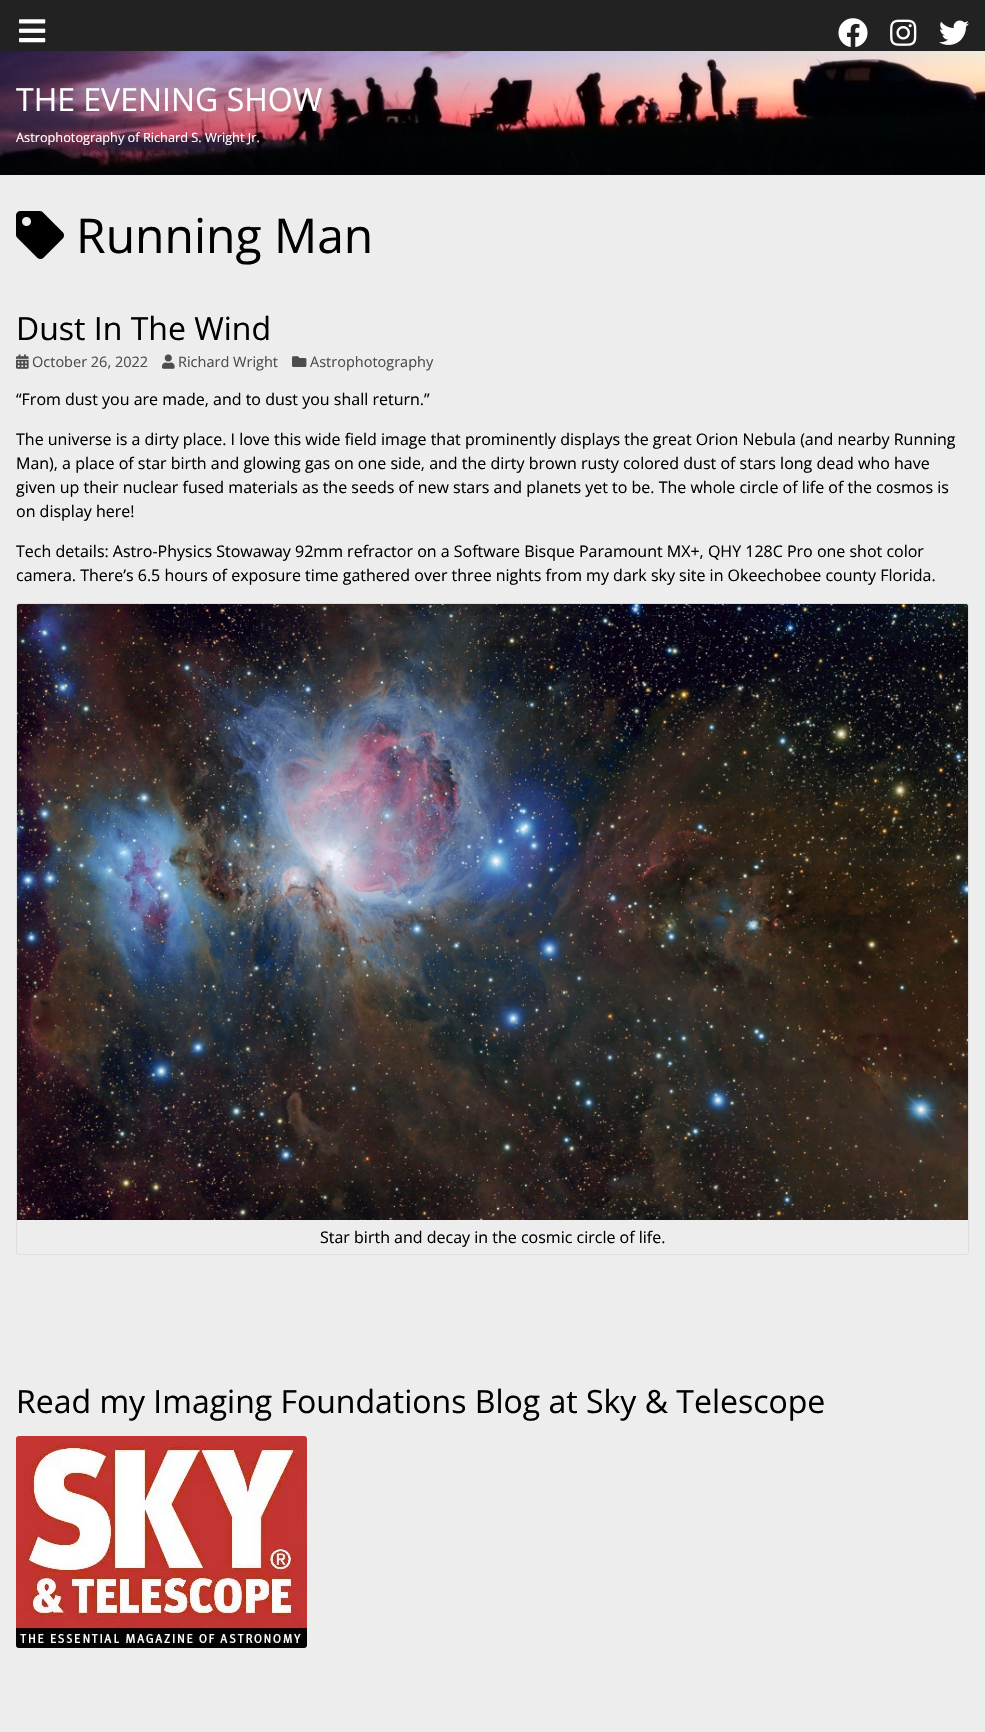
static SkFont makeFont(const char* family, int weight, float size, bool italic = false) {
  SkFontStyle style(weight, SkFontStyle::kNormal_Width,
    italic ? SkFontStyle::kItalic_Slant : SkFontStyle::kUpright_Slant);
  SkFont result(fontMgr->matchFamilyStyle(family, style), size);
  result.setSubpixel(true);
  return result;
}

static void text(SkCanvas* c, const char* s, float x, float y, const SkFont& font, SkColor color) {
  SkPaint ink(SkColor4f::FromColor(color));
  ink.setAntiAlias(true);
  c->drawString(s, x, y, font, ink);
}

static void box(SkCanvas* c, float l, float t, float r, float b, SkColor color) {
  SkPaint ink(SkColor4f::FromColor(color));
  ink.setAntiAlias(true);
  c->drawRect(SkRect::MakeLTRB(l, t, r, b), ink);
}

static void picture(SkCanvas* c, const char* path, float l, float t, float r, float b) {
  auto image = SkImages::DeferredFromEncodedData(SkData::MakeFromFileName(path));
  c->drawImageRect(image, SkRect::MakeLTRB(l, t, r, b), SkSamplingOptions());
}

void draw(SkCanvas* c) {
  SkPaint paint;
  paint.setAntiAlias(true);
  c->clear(0xffededed);
  box(c, 0, 0, 985, 51, 0xff222222);
  picture(c, "img_01.png", 19, 19, 46, 43);
  picture(c, "img_02.png", 838, 18, 868, 47);
  picture(c, "img_03.png", 890, 19, 917, 46);
  picture(c, "img_04.png", 939, 20, 969, 45);
  picture(c, "img_05.png", 0, 51, 985, 175);
  SkFont face1 = makeFont("Open Sans", 400, 32);
  text(c, "THE EVENING SHOW", 16, 111, face1, 0xffffffff);
  SkFont face2 = makeFont("Open Sans", 400, 12.75f);
  text(c, "Astrophotography of Richard S. Wright Jr.", 16, 142, face2, 0xffffffff);
  picture(c, "img_06.png", 16, 211, 64, 259);
  SkFont face3 = makeFont("Open Sans", 400, 48);
  text(c, "Running Man", 76, 253, face3, 0xff000000);
  text(c, "Dust In The Wind", 16, 340, face1, 0xff000000);
  picture(c, "img_07.png", 16, 354, 29, 369);
  SkFont face4 = makeFont("Open Sans", 400, 14.5f);
  text(c, "October 26, 2022", 32, 367, face4, 0xff4d4d4d);
  picture(c, "img_08.png", 162, 354, 175, 369);
  text(c, "Richard Wright", 178, 367, face4, 0xff4d4d4d);
  picture(c, "img_09.png", 292, 356, 307, 367);
  text(c, "Astrophotography", 310, 367, face4, 0xff4d4d4d);
  SkFont face5 = makeFont("Open Sans", 400, 16);
  text(c, "“From dust you are made, and to dust you shall return.”", 16, 405, face5, 0xff000000);
  text(c, "The universe is a dirty place. I love this wide field image that prominently displays the great Orion Nebula (and nearby Running", 16, 445, face5, 0xff000000);
  text(c, "Man), a place of star birth and glowing gas on one side, and the dirty brown rusty colored dust of stars long dead who have", 16, 469, face5, 0xff000000);
  text(c, "given up their nuclear fused materials as the seeds of new stars and planets yet to be. The whole circle of life of the cosmos is", 16, 493, face5, 0xff000000);
  text(c, "on display here!", 16, 517, face5, 0xff000000);
  text(c, "Tech details: Astro-Physics Stowaway 92mm refractor on a Software Bisque Paramount MX+, QHY 128C Pro one shot color", 16, 557, face5, 0xff000000);
  text(c, "camera. There’s 6.5 hours of exposure time gathered over three nights from my dark sky site in Okeechobee county Florida.", 16, 581, face5, 0xff000000);
  paint.setStyle(SkPaint::kStroke_Style);
  paint.setStrokeWidth(1);
  paint.setColor(0xffdddddd);
  c->drawRoundRect(SkRect::MakeLTRB(16.5f, 603.5f, 968.5f, 1254.5f), 2.5f, 2.5f, paint);
  picture(c, "img_10.png", 17, 604, 968, 1220);
  text(c, "Star birth and decay in the cosmic circle of life.", 320, 1243, face5, 0xff000000);
  text(c, "Read my Imaging Foundations Blog at Sky & Telescope", 16, 1413, face1, 0xff000000);
  picture(c, "img_11.png", 16, 1436, 307, 1648);
}
